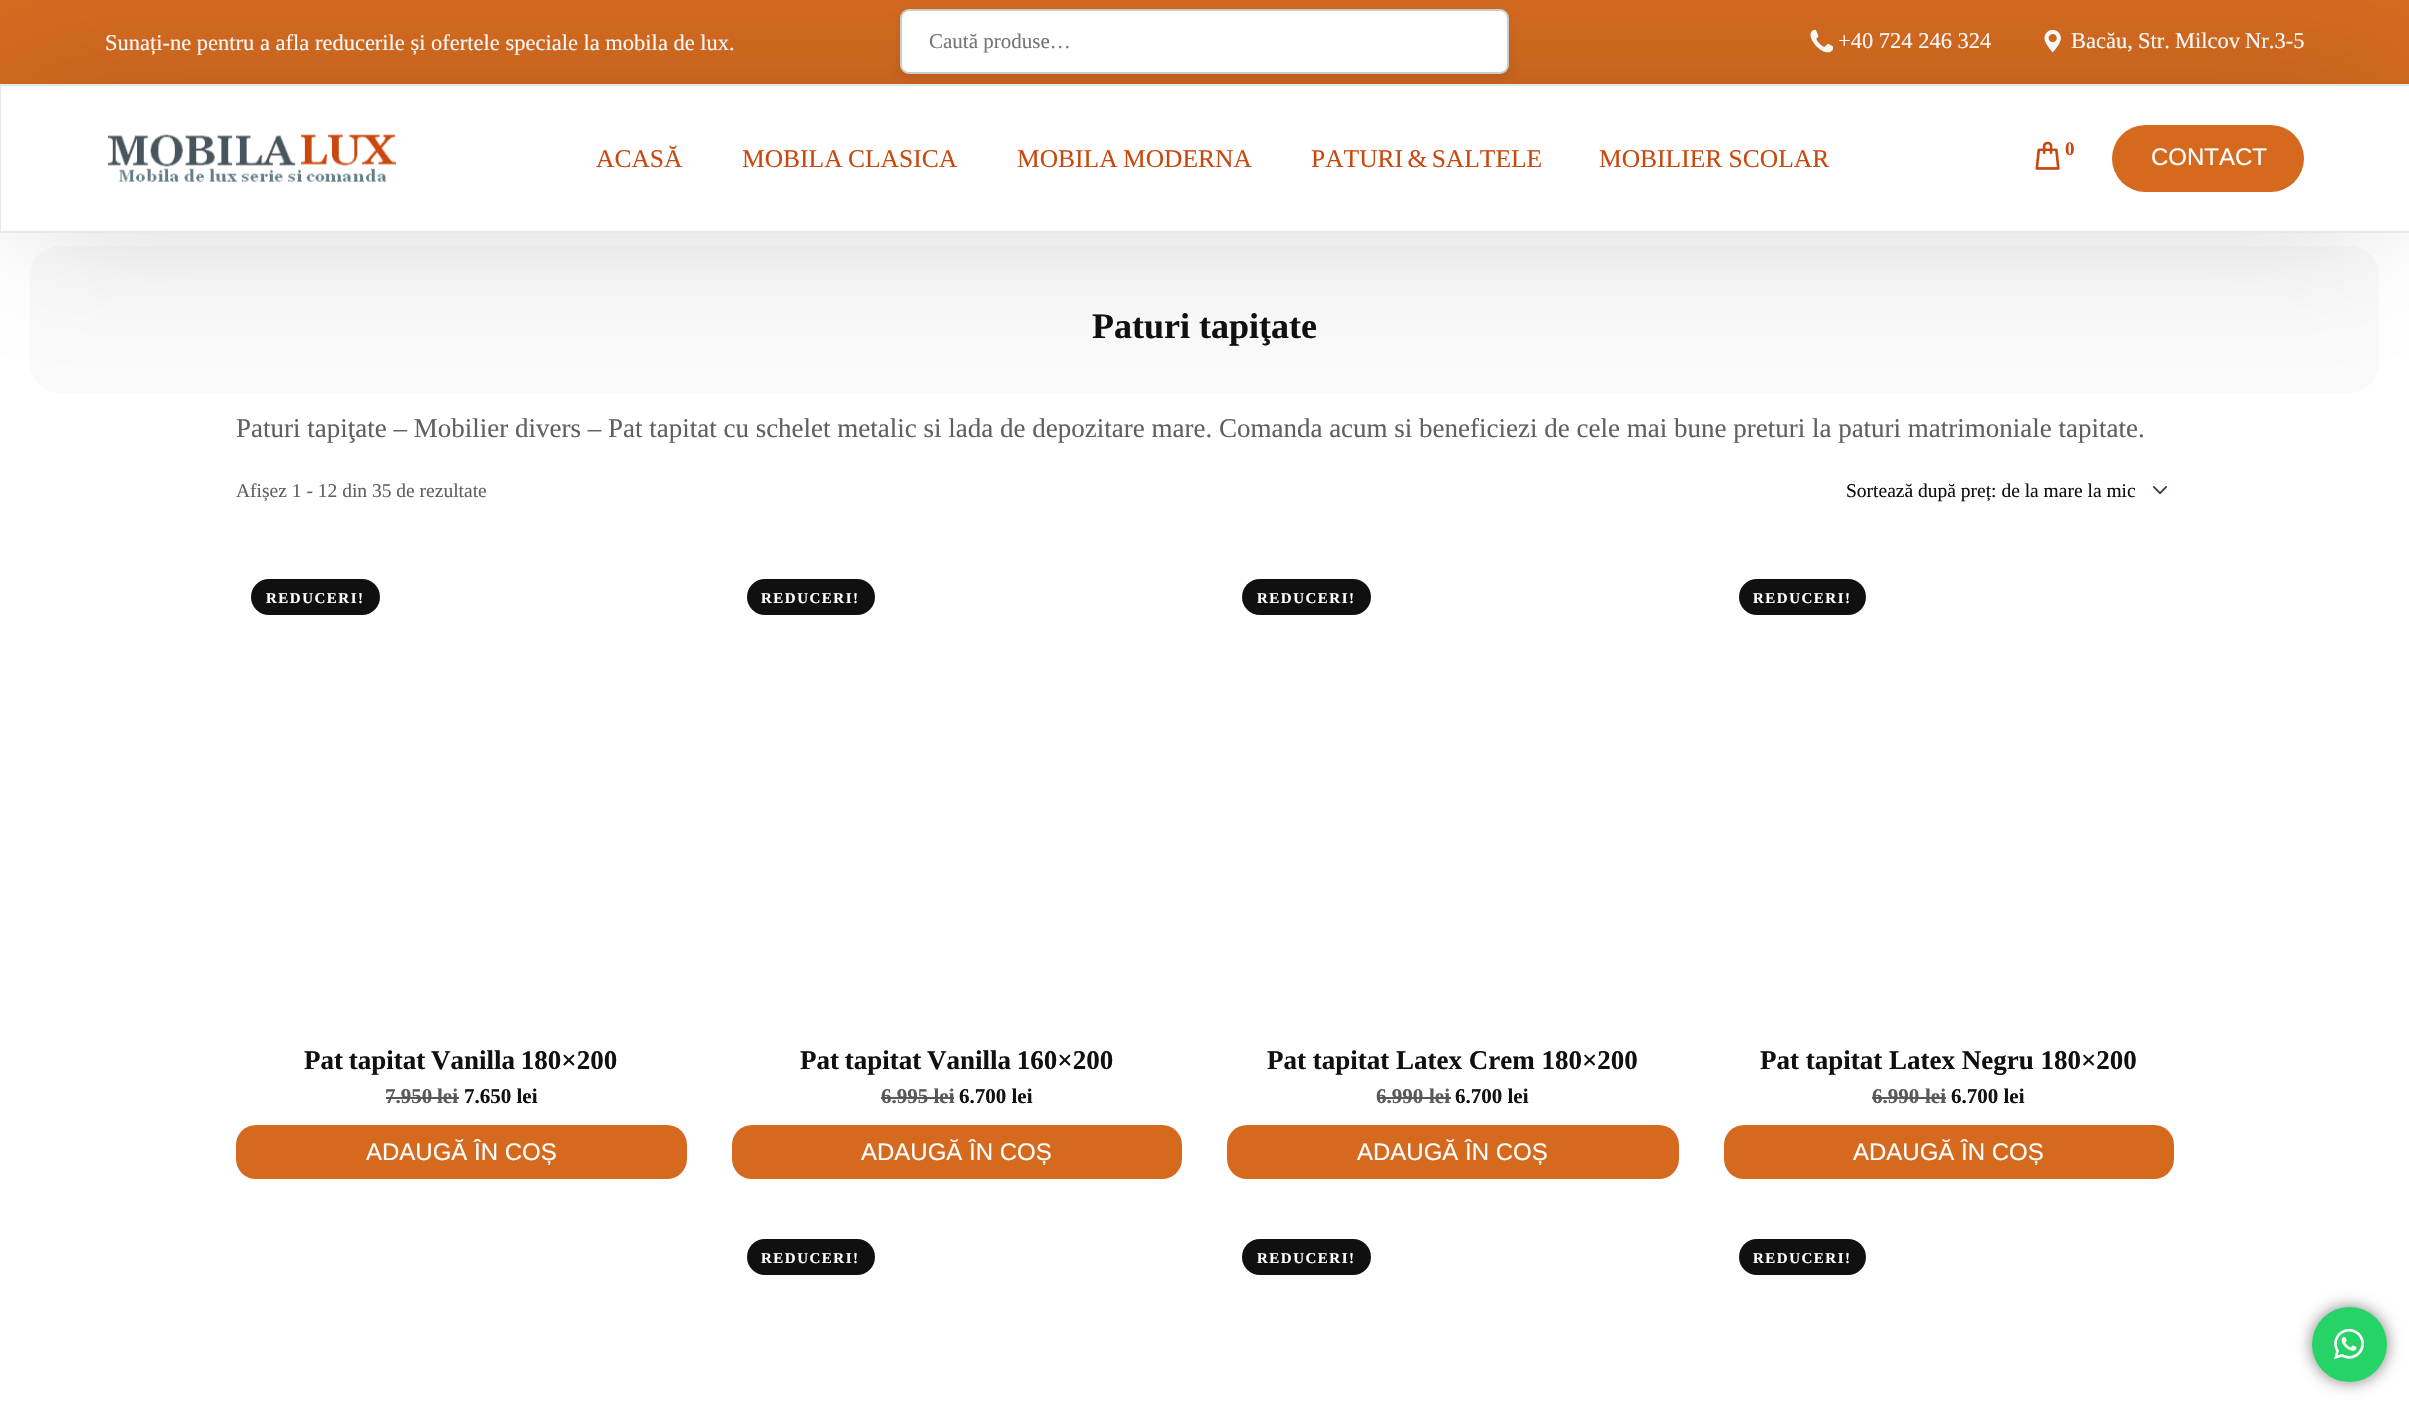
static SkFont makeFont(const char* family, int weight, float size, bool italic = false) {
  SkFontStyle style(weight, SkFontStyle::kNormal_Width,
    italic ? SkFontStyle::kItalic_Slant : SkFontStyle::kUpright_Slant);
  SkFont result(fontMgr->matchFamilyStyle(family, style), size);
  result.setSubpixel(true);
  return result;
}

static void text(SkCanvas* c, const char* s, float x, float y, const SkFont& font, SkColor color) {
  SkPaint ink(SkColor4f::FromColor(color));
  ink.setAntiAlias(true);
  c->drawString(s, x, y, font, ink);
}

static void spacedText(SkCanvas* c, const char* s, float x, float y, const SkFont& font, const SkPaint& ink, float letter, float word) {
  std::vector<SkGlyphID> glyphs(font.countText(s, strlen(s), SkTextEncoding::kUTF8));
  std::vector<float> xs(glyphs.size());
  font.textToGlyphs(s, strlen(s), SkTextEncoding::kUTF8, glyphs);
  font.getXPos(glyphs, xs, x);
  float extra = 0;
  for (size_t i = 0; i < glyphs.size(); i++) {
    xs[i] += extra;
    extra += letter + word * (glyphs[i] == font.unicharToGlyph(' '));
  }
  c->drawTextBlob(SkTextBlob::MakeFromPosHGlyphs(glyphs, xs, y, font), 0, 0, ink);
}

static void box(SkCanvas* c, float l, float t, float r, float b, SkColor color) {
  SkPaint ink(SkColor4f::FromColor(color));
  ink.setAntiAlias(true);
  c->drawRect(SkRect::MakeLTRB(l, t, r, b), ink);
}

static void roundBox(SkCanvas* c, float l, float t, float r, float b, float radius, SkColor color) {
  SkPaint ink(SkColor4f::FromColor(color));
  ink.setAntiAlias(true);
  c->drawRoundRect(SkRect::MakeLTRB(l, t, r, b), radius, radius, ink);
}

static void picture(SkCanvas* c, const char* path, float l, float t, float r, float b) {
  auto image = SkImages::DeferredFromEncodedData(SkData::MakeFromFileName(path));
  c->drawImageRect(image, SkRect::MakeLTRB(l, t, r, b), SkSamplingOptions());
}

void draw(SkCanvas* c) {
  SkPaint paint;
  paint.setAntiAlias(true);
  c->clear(0xffffffff);
  box(c, 0, 0, 2409, 84, 0xffd36a20);
  SkFont face1 = makeFont("Liberation Serif", 400, 22.5f);
  text(c, "Sunați-ne pentru a afla reducerile și ofertele speciale la mobila de lux.", 105, 50, face1, 0xffffffff);
  picture(c, "img_01.png", 1810, 29, 1833, 53);
  text(c, "+40 724 246 324", 1838, 48, face1, 0xffffffff);
  picture(c, "img_02.png", 2044, 29, 2061, 53);
  paint.setColor(0xffffffff);
  spacedText(c, "Bacău, Str. Milcov Nr.3-5", 2071, 48, face1, paint, 0, -0.5f);
  roundBox(c, 30, 246, 2379, 393, 30, 0xfffafafa);
  c->save();
  c->clipPath(SkPathBuilder(SkPathFillType::kEvenOdd).moveTo(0, 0).lineTo(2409, 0).lineTo(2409, 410).lineTo(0, 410).close().moveTo(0, 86).lineTo(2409, 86).lineTo(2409, 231).lineTo(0, 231).close().detach(), true);
  paint.setColor(0x40000000);
  paint.setMaskFilter(SkMaskFilter::MakeBlur(kNormal_SkBlurStyle, 67.5f));
  c->drawRect(SkRect::MakeLTRB(27, 120, 2376, 206), paint);
  paint.setMaskFilter(nullptr);
  c->restore();
  paint.setStyle(SkPaint::kStroke_Style);
  paint.setStrokeWidth(2);
  paint.setColor(0xffe6e9ec);
  c->drawRect(SkRect::MakeLTRB(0, 85, 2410, 232), paint);
  picture(c, "img_03.png", 107, 134, 396, 182);
  SkFont face2 = makeFont("Liberation Serif", 400, 25.5f);
  text(c, "ACASĂ", 596, 167, face2, 0xffc8480e);
  paint.setStyle(SkPaint::kFill_Style);
  paint.setColor(0xffc8480e);
  spacedText(c, "MOBILA CLASICA", 742, 167, face2, paint, 0, -1);
  spacedText(c, "MOBILA MODERNA", 1017, 167, face2, paint, 0, -1);
  spacedText(c, "PATURI & SALTELE", 1311, 167, face2, paint, 0, -2);
  text(c, "MOBILIER SCOLAR", 1599, 167, face2, 0xffc8480e);
  picture(c, "img_04.png", 2035, 141, 2060, 170);
  SkFont face3 = makeFont("Liberation Serif", 700, 19);
  text(c, "0", 2065, 155, face3, 0xffc8480e);
  roundBox(c, 2112, 125, 2304, 192, 33.5f, 0xffd56a1f);
  SkFont face4 = makeFont("Liberation Sans", 400, 24);
  text(c, "CONTACT", 2151, 165, face4, 0xffffffff);
  SkFont face5 = makeFont("Liberation Serif", 700, 36);
  text(c, "Paturi tapiţate", 1092, 338, face5, 0xff101010);
  SkFont face6 = makeFont("Liberation Serif", 400, 27);
  text(c, "Paturi tapiţate – Mobilier divers – Pat tapitat cu schelet metalic si lada de depozitare mare. Comanda acum si beneficiezi de cele mai bune preturi la paturi matrimoniale tapitate.", 236, 437, face6, 0xff606060);
  SkFont face7 = makeFont("Liberation Serif", 400, 19.5f);
  text(c, "Afișez 1 - 12 din 35 de rezultate", 236, 497, face7, 0xff606060);
  picture(c, "img_05.png", 2153, 486, 2167, 494);
  text(c, "Sortează după preț: de la mare la mic", 1846, 497, face7, 0xff101010);
  roundBox(c, 251, 579, 380, 615, 18, 0xff101010);
  SkFont face8 = makeFont("Liberation Serif", 700, 15);
  paint.setColor(0xffffffff);
  spacedText(c, "REDUCERI!", 266, 603, face8, paint, 1.5f, 0);
  SkFont face9 = makeFont("Liberation Serif", 700, 27);
  paint.setColor(0xff101010);
  spacedText(c, "Pat tapitat Vanilla 180×200", 304, 1069, face9, paint, 0, -1);
  SkFont face10 = makeFont("Liberation Serif", 700, 21);
  text(c, "7.950", 385, 1103, face10, 0xff585858);
  box(c, 386, 1097, 438, 1099, 0xff585858);
  text(c, "lei", 437, 1103, face10, 0xff585858);
  box(c, 438, 1097, 459, 1099, 0xff585858);
  text(c, "7.650 lei", 464, 1103, face10, 0xff101010);
  roundBox(c, 236, 1125, 687, 1179, 20, 0xffd56a1f);
  text(c, "ADAUGĂ ÎN COȘ", 366, 1160, face4, 0xffffffff);
  roundBox(c, 747, 579, 875, 615, 18, 0xff101010);
  paint.setColor(0xffffffff);
  spacedText(c, "REDUCERI!", 761, 603, face8, paint, 1.5f, 0);
  paint.setColor(0xff101010);
  spacedText(c, "Pat tapitat Vanilla 160×200", 800, 1069, face9, paint, 0, -1);
  text(c, "6.995 lei", 881, 1103, face10, 0xff585858);
  box(c, 881, 1097, 954, 1099, 0xff585858);
  text(c, "6.700 lei", 959, 1103, face10, 0xff101010);
  roundBox(c, 732, 1125, 1182, 1179, 20, 0xffd56a1f);
  text(c, "ADAUGĂ ÎN COȘ", 861, 1160, face4, 0xffffffff);
  roundBox(c, 1242, 579, 1371, 615, 18, 0xff101010);
  paint.setColor(0xffffffff);
  spacedText(c, "REDUCERI!", 1257, 603, face8, paint, 1.5f, 0);
  text(c, "Pat tapitat Latex Crem 180×200", 1267, 1069, face9, 0xff101010);
  text(c, "6.990", 1376, 1103, face10, 0xff585858);
  box(c, 1377, 1097, 1430, 1099, 0xff585858);
  text(c, "lei", 1429, 1103, face10, 0xff585858);
  box(c, 1430, 1097, 1451, 1099, 0xff585858);
  text(c, "6.700 lei", 1455, 1103, face10, 0xff101010);
  roundBox(c, 1227, 1125, 1679, 1179, 20, 0xffd56a1f);
  text(c, "ADAUGĂ ÎN COȘ", 1357, 1160, face4, 0xffffffff);
  roundBox(c, 1739, 579, 1866, 615, 18, 0xff101010);
  spacedText(c, "REDUCERI!", 1753, 603, face8, paint, 1.5f, 0);
  text(c, "Pat tapitat Latex Negru 180×200", 1760, 1069, face9, 0xff101010);
  text(c, "6.990", 1872, 1103, face10, 0xff585858);
  box(c, 1872, 1097, 1925, 1099, 0xff585858);
  text(c, "lei", 1925, 1103, face10, 0xff585858);
  box(c, 1925, 1097, 1946, 1099, 0xff585858);
  text(c, "6.700 lei", 1951, 1103, face10, 0xff101010);
  roundBox(c, 1724, 1125, 2174, 1179, 20, 0xffd56a1f);
  text(c, "ADAUGĂ ÎN COȘ", 1853, 1160, face4, 0xffffffff);
  roundBox(c, 747, 1239, 875, 1275, 18, 0xff101010);
  spacedText(c, "REDUCERI!", 761, 1263, face8, paint, 1.5f, 0);
  roundBox(c, 1242, 1239, 1371, 1275, 18, 0xff101010);
  spacedText(c, "REDUCERI!", 1257, 1263, face8, paint, 1.5f, 0);
  roundBox(c, 1739, 1239, 1866, 1275, 18, 0xff101010);
  spacedText(c, "REDUCERI!", 1753, 1263, face8, paint, 1.5f, 0);
  paint.setColor(0x14000000);
  paint.setMaskFilter(SkMaskFilter::MakeBlur(kNormal_SkBlurStyle, 4.5f));
  c->drawRoundRect(SkRect::MakeLTRB(900, 12, 1509, 77), 9, 9, paint);
  paint.setMaskFilter(nullptr);
  paint.setColor(0xffffffff);
  c->drawRoundRect(SkRect::MakeLTRB(901, 10, 1508, 73), 8, 8, paint);
  paint.setStyle(SkPaint::kStroke_Style);
  paint.setColor(0xffcccccc);
  c->drawRoundRect(SkRect::MakeLTRB(901, 10, 1508, 73), 8, 8, paint);
  SkFont face11 = makeFont("Liberation Serif", 400, 21);
  text(c, "Caută produse…", 929, 48, face11, 0xff757575);
  paint.setStyle(SkPaint::kFill_Style);
  paint.setColor(0x80000000);
  paint.setMaskFilter(SkMaskFilter::MakeBlur(kNormal_SkBlurStyle, 8));
  c->drawRoundRect(SkRect::MakeLTRB(2312, 1307, 2387, 1382), 37.5f, 37.5f, paint);
  paint.setMaskFilter(nullptr);
  paint.setColor(0xff25d366);
  c->drawCircle(2349.5f, 1344.5f, 37.5f, paint);
  picture(c, "img_06.png", 2334, 1329, 2364, 1359);
}
